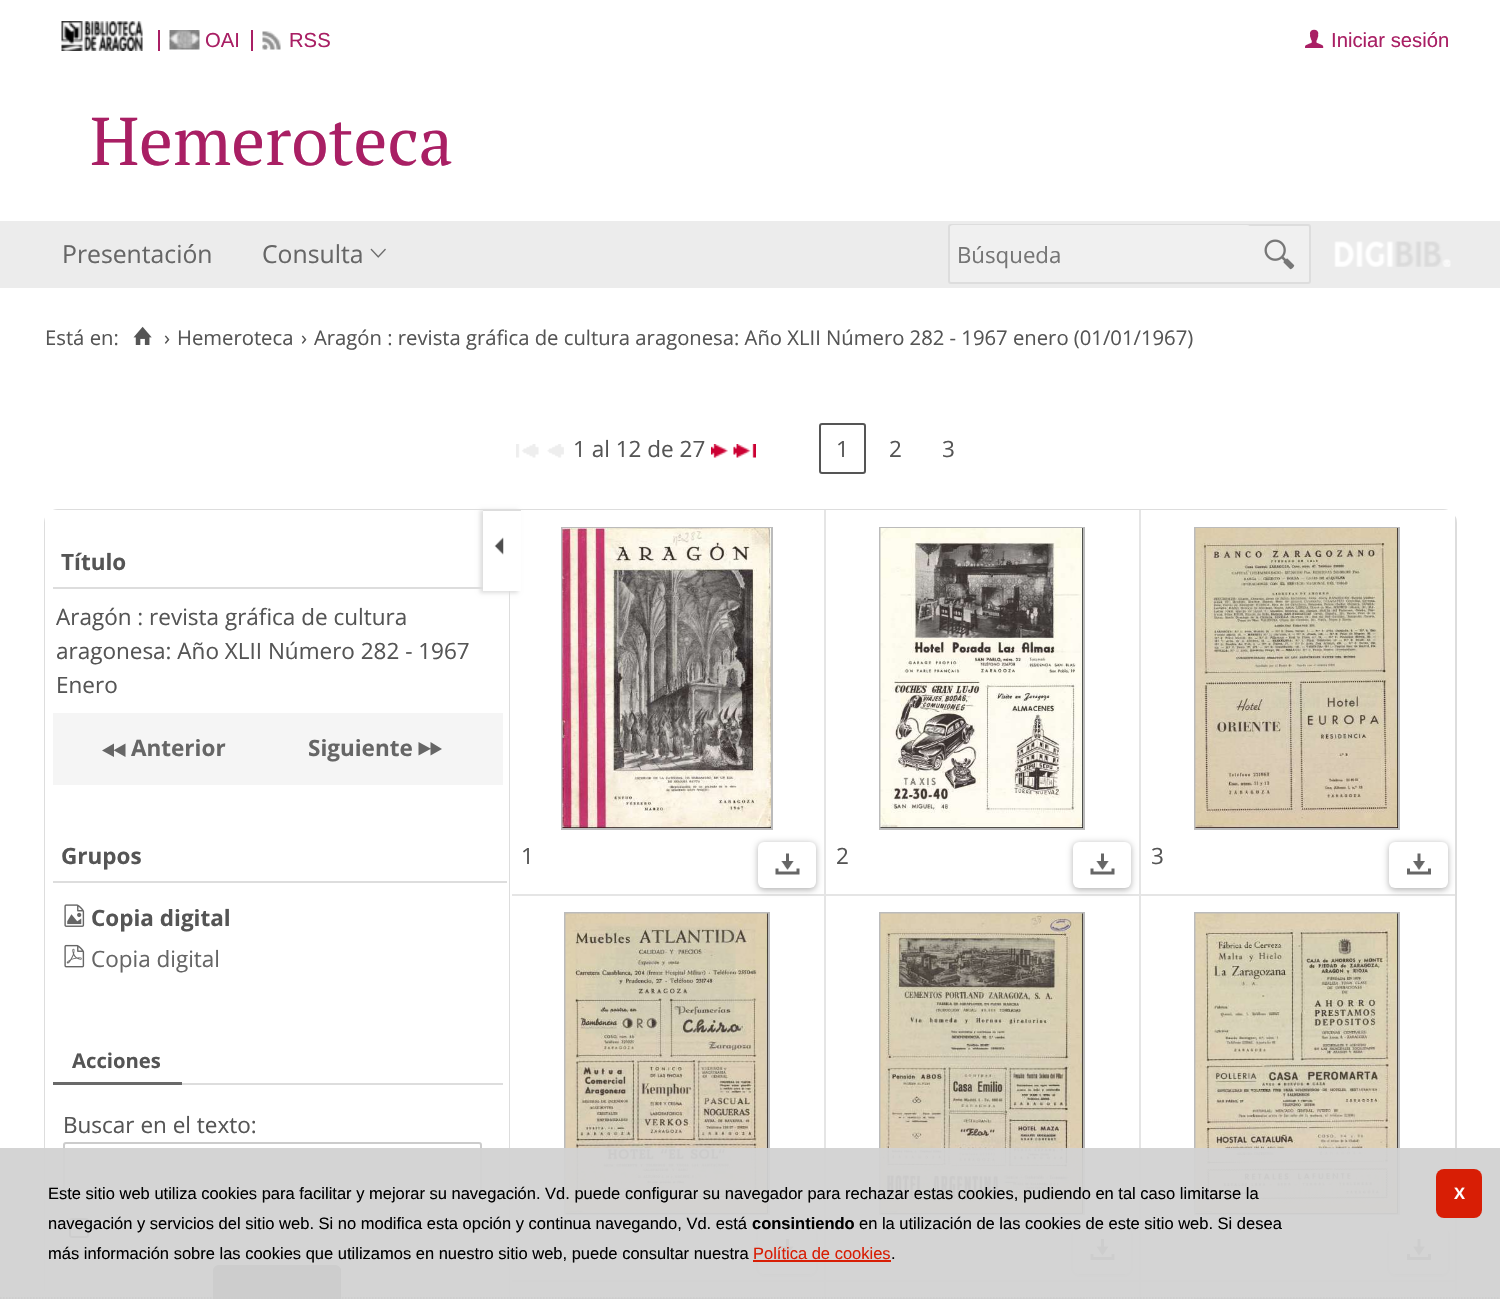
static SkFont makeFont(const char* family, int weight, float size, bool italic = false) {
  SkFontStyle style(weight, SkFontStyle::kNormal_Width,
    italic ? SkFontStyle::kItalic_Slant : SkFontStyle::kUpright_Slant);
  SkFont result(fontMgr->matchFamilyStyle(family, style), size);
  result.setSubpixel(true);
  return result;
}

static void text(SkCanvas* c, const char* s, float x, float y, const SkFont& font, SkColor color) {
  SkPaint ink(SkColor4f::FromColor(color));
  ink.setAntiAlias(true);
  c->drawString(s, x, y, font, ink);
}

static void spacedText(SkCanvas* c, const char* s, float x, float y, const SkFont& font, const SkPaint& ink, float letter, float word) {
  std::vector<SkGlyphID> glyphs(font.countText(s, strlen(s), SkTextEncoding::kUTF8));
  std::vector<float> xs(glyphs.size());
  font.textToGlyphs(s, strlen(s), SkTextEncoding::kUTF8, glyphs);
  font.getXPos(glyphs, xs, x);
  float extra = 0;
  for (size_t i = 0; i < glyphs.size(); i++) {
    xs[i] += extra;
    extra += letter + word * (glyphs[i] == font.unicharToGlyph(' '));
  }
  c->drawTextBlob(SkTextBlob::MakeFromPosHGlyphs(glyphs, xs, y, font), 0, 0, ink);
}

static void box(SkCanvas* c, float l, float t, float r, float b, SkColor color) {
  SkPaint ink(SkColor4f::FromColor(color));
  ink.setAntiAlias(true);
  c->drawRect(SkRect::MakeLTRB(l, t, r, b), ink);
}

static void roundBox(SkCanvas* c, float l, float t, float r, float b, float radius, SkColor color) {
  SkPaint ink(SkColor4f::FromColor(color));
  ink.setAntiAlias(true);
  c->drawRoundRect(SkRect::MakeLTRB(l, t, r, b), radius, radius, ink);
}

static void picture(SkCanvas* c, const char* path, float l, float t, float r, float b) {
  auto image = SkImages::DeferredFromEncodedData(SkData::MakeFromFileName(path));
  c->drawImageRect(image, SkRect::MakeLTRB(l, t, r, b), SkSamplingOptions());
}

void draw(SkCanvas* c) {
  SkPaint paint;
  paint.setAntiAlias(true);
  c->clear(0xffffffff);
  picture(c, "img_01.png", 61, 21, 143, 51);
  box(c, 158, 30, 160, 51, 0xffa91f64);
  picture(c, "img_02.png", 169, 30, 200, 50);
  SkFont face1 = makeFont("Liberation Sans", 400, 20.25f);
  text(c, "OAI", 205, 47, face1, 0xffa91f64);
  box(c, 251, 30, 253, 51, 0xffa91f64);
  picture(c, "img_03.png", 262, 31, 281, 50);
  text(c, "RSS", 289, 47, face1, 0xffa91f64);
  picture(c, "img_04.png", 1305, 29, 1324, 48);
  text(c, "Iniciar sesión", 1331, 47, face1, 0xffa91f64);
  SkFont face2 = makeFont("PT Serif", 400, 67.5f);
  text(c, "Hemeroteca", 90, 165, face2, 0xffa91f64);
  box(c, 0, 221, 1500, 288, 0xffececec);
  SkFont face3 = makeFont("Open Sans", 400, 24.75f);
  text(c, "Presentación", 62, 263, face3, 0xff666666);
  text(c, "Consulta", 262, 263, face3, 0xff666666);
  picture(c, "img_05.png", 370, 248, 386, 258);
  paint.setColor(0xfff0f0f0);
  c->drawRoundRect(SkRect::MakeLTRB(949, 225, 1310, 283), 2, 2, paint);
  paint.setStyle(SkPaint::kStroke_Style);
  paint.setStrokeWidth(2);
  paint.setColor(0xffdddddd);
  c->drawRoundRect(SkRect::MakeLTRB(949, 225, 1310, 283), 2, 2, paint);
  roundBox(c, 950, 225, 1250, 282, 3, 0xfff0f0f0);
  SkFont face4 = makeFont("Open Sans", 400, 22.25f);
  text(c, "Búsqueda", 957, 263, face4, 0xff757575);
  picture(c, "img_06.png", 1264, 239, 1295, 270);
  picture(c, "img_07.png", 1334, 241, 1451, 267);
  SkFont face5 = makeFont("Open Sans", 400, 20.25f);
  text(c, "Está en:", 45, 345, face5, 0xff555555);
  picture(c, "img_08.png", 133, 326, 152, 345);
  text(c, "›", 164, 345, face5, 0xff555555);
  text(c, "Hemeroteca", 177, 345, face5, 0xff555555);
  text(c, "›", 301, 345, face5, 0xff555555);
  text(c, "Aragón : revista gráfica de cultura aragonesa: Año XLII Número 282 - 1967 enero (01/01/1967)", 314, 345, face5, 0xff555555);
  picture(c, "img_09.png", 516, 444, 539, 458);
  picture(c, "img_10.png", 547, 444, 564, 458);
  SkFont face6 = makeFont("Open Sans", 400, 22.5f);
  text(c, "1 al 12 de 27", 573, 457, face6, 0xff555555);
  picture(c, "img_11.png", 711, 444, 728, 458);
  picture(c, "img_12.png", 733, 444, 756, 458);
  paint.setColor(0xff555555);
  c->drawRoundRect(SkRect::MakeLTRB(820, 424, 865, 473), 2, 2, paint);
  text(c, "1", 836, 457, face6, 0xff555555);
  text(c, "2", 889, 457, face6, 0xff555555);
  text(c, "3", 942, 457, face6, 0xff555555);
  paint.setColor(0xffdddddd);
  c->drawRoundRect(SkRect::MakeLTRB(45, 510, 1456, 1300), 13, 13, paint);
  box(c, 45, 510, 509, 1299, 0xffffffff);
  box(c, 509, 591, 510, 1299, 0xffdddddd);
  box(c, 53, 587, 483, 589, 0xffdddddd);
  SkFont face7 = makeFont("Open Sans", 700, 22.5f);
  text(c, "Título", 61, 570, face7, 0xff555555);
  text(c, "Aragón : revista gráfica de cultura", 56, 625, face6, 0xff555555);
  text(c, "aragonesa: Año XLII Número 282 - 1967", 56, 659, face6, 0xff555555);
  text(c, "Enero", 56, 693, face6, 0xff555555);
  box(c, 53, 713, 503, 785, 0xfff5f5f5);
  paint.setStyle(SkPaint::kFill_Style);
  paint.setColor(0xff666666);
  c->drawPath(SkPathBuilder().moveTo(114, 743.5f).lineTo(114, 750).lineTo(125.5f, 743.5f).lineTo(125.5f, 757).lineTo(114, 750.5f).lineTo(114, 757).lineTo(102, 750.5f).close().detach(), paint);
  text(c, "Anterior", 131, 756, face7, 0xff666666);
  text(c, "Siguiente", 308, 756, face7, 0xff666666);
  c->drawPath(SkPathBuilder().moveTo(430.5f, 742).lineTo(442, 749).lineTo(430.5f, 755.5f).lineTo(430.5f, 749).lineTo(418.5f, 755.5f).lineTo(418.5f, 742).lineTo(430.5f, 748.5f).close().detach(), paint);
  box(c, 53, 881, 507, 883, 0xffdddddd);
  text(c, "Grupos", 61, 864, face7, 0xff555555);
  picture(c, "img_13.png", 64, 904, 85, 927);
  text(c, "Copia digital", 91, 926, face7, 0xff555555);
  picture(c, "img_14.png", 64, 944, 85, 968);
  text(c, "Copia digital", 91, 967, face6, 0xff666666);
  box(c, 182, 1083, 503, 1085, 0xffdddddd);
  box(c, 53, 1082, 182, 1085, 0xff696969);
  SkFont face8 = makeFont("Open Sans", 700, 20.25f);
  text(c, "Acciones", 72, 1068, face8, 0xff555555);
  text(c, "Buscar en el texto:", 63, 1133, face6, 0xff555555);
  paint.setStyle(SkPaint::kStroke_Style);
  paint.setColor(0xffcccccc);
  c->drawRoundRect(SkRect::MakeLTRB(64, 1143, 481, 1196), 2, 2, paint);
  paint.setColor(0xff767676);
  c->drawRoundRect(SkRect::MakeLTRB(70, 1219, 88, 1237), 2, 2, paint);
  paint.setStyle(SkPaint::kFill_Style);
  paint.setColor(0xff696969);
  c->drawPath(SkPathBuilder().moveTo(219, 1265).lineTo(335, 1265).cubicTo(338.5f, 1265, 341, 1267.5f, 341, 1271).lineTo(341, 1299).lineTo(213, 1299).lineTo(213, 1271).cubicTo(213, 1267.5f, 215.5f, 1265, 219, 1265).close().detach(), paint);
  paint.setColor(0xff555555);
  c->drawPath(SkPathBuilder().moveTo(213, 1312).lineTo(213, 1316).cubicTo(213, 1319, 216, 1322, 219, 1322).lineTo(335, 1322).cubicTo(338, 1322, 341, 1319, 341, 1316).lineTo(341, 1271).cubicTo(341, 1270, 341, 1269, 340, 1268).lineTo(340, 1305).cubicTo(340, 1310, 342, 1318, 334, 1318).lineTo(238, 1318).cubicTo(236, 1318, 213, 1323, 213, 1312).close().detach(), paint);
  box(c, 512, 510, 1455, 1299, 0xffffffff);
  box(c, 824, 510, 826, 896, 0xffe5e5e5);
  box(c, 510, 894, 825, 896, 0xffe5e5e5);
  paint.setColor(0x4d000000);
  paint.setMaskFilter(SkMaskFilter::MakeBlur(kNormal_SkBlurStyle, 3));
  c->drawRoundRect(SkRect::MakeLTRB(758, 843, 816, 890), 6, 6, paint);
  paint.setMaskFilter(nullptr);
  box(c, 824, 896, 826, 1281, 0xffe5e5e5);
  box(c, 510, 1280, 825, 1282, 0xffe5e5e5);
  box(c, 510, 894, 512, 1282, 0xffffffff);
  paint.setColor(0xffdddddd);
  paint.setMaskFilter(SkMaskFilter::MakeBlur(kNormal_SkBlurStyle, 2));
  c->drawRect(SkRect::MakeLTRB(480, 510, 518, 593), paint);
  paint.setMaskFilter(nullptr);
  box(c, 483, 511, 521, 591, 0xffffffff);
  box(c, 483, 510, 521, 511, 0xffdddddd);
  picture(c, "img_15.png", 494, 537, 504, 555);
  paint.setStyle(SkPaint::kStroke_Style);
  paint.setColor(0xffbbbbbb);
  c->drawRect(SkRect::MakeLTRB(562, 528, 772, 829), paint);
  picture(c, "img_16.png", 562, 528, 771, 828);
  text(c, "1", 521, 864, face6, 0xff555555);
  roundBox(c, 758, 842, 816, 888, 6, 0xffffffff);
  picture(c, "img_17.png", 775, 853, 800, 875);
  box(c, 1139, 510, 1141, 896, 0xffe5e5e5);
  box(c, 825, 894, 1140, 896, 0xffe5e5e5);
  c->drawRect(SkRect::MakeLTRB(880, 528, 1084, 829), paint);
  picture(c, "img_18.png", 880, 528, 1083, 828);
  text(c, "2", 836, 864, face6, 0xff555555);
  paint.setStyle(SkPaint::kFill_Style);
  paint.setColor(0x4d000000);
  paint.setMaskFilter(SkMaskFilter::MakeBlur(kNormal_SkBlurStyle, 3));
  c->drawRoundRect(SkRect::MakeLTRB(1073, 843, 1131, 890), 6, 6, paint);
  paint.setMaskFilter(nullptr);
  roundBox(c, 1073, 842, 1131, 888, 6, 0xffffffff);
  picture(c, "img_17.png", 1090, 853, 1115, 875);
  box(c, 1140, 894, 1455, 896, 0xffe5e5e5);
  paint.setStyle(SkPaint::kStroke_Style);
  paint.setColor(0xffbbbbbb);
  c->drawRect(SkRect::MakeLTRB(1195, 528, 1399, 829), paint);
  picture(c, "img_19.png", 1195, 528, 1398, 828);
  text(c, "3", 1151, 864, face6, 0xff555555);
  paint.setStyle(SkPaint::kFill_Style);
  paint.setColor(0x4d000000);
  paint.setMaskFilter(SkMaskFilter::MakeBlur(kNormal_SkBlurStyle, 3));
  c->drawRoundRect(SkRect::MakeLTRB(1389, 843, 1448, 890), 6, 6, paint);
  paint.setMaskFilter(nullptr);
  roundBox(c, 1389, 842, 1448, 888, 6, 0xffffffff);
  picture(c, "img_20.png", 1407, 853, 1431, 875);
  paint.setStyle(SkPaint::kStroke_Style);
  paint.setColor(0xffbbbbbb);
  c->drawRect(SkRect::MakeLTRB(565, 913, 769, 1214), paint);
  picture(c, "img_21.png", 565, 913, 768, 1214);
  paint.setStyle(SkPaint::kFill_Style);
  paint.setColor(0x4d000000);
  paint.setMaskFilter(SkMaskFilter::MakeBlur(kNormal_SkBlurStyle, 3));
  c->drawRoundRect(SkRect::MakeLTRB(758, 1229, 816, 1275), 6, 6, paint);
  paint.setMaskFilter(nullptr);
  roundBox(c, 758, 1227, 816, 1274, 6, 0xffffffff);
  picture(c, "img_22.png", 775, 1239, 800, 1260);
  box(c, 1139, 896, 1141, 1281, 0xffe5e5e5);
  box(c, 825, 1280, 1140, 1282, 0xffe5e5e5);
  paint.setStyle(SkPaint::kStroke_Style);
  paint.setColor(0xffbbbbbb);
  c->drawRect(SkRect::MakeLTRB(880, 913, 1084, 1214), paint);
  picture(c, "img_23.png", 880, 913, 1083, 1214);
  paint.setStyle(SkPaint::kFill_Style);
  paint.setColor(0x4d000000);
  paint.setMaskFilter(SkMaskFilter::MakeBlur(kNormal_SkBlurStyle, 3));
  c->drawRoundRect(SkRect::MakeLTRB(1073, 1229, 1131, 1275), 6, 6, paint);
  paint.setMaskFilter(nullptr);
  roundBox(c, 1073, 1227, 1131, 1274, 6, 0xffffffff);
  picture(c, "img_22.png", 1090, 1239, 1115, 1260);
  box(c, 1140, 1280, 1455, 1282, 0xffe5e5e5);
  paint.setStyle(SkPaint::kStroke_Style);
  paint.setColor(0xffbbbbbb);
  c->drawRect(SkRect::MakeLTRB(1195, 913, 1399, 1214), paint);
  picture(c, "img_24.png", 1195, 913, 1398, 1214);
  paint.setStyle(SkPaint::kFill_Style);
  paint.setColor(0x4d000000);
  paint.setMaskFilter(SkMaskFilter::MakeBlur(kNormal_SkBlurStyle, 3));
  c->drawRoundRect(SkRect::MakeLTRB(1389, 1229, 1448, 1275), 6, 6, paint);
  paint.setMaskFilter(nullptr);
  roundBox(c, 1389, 1227, 1448, 1274, 6, 0xffffffff);
  picture(c, "img_25.png", 1407, 1239, 1431, 1260);
  box(c, 824, 1281, 826, 1299, 0xffe5e5e5);
  paint.setStyle(SkPaint::kStroke_Style);
  paint.setColor(0xffbbbbbb);
  c->drawRect(SkRect::MakeLTRB(565, 1299, 769, 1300), paint);
  box(c, 1139, 1281, 1141, 1299, 0xffe5e5e5);
  c->drawRect(SkRect::MakeLTRB(880, 1299, 1084, 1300), paint);
  c->drawRect(SkRect::MakeLTRB(1195, 1299, 1399, 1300), paint);
  box(c, 0, 1148, 1500, 1299, 0xf2d2d2d2);
  paint.setStrokeWidth(1.5f);
  paint.setColor(0xffcccccc);
  paint.setPathEffect(SkDashPathEffect::Make({{1.5f, 1.5f}}, 0));
  c->drawPath(SkPathBuilder().moveTo(0, 1298).lineTo(1500, 1298).detach(), paint);
  paint.setPathEffect(nullptr);
  SkFont face9 = makeFont("Liberation Sans", 400, 16.5f);
  text(c, "Este sitio web utiliza cookies para facilitar y mejorar su navegación. Vd. puede configurar su navegador para rechazar estas cookies, pudiendo en tal caso limitarse la", 48, 1199, face9, 0xff000000);
  text(c, "navegación y servicios del sitio web. Si no modifica esta opción y continua navegando, Vd. está", 48, 1229, face9, 0xff000000);
  SkFont face10 = makeFont("Liberation Sans", 700, 16.5f);
  text(c, "consintiendo", 752, 1229, face10, 0xff000000);
  text(c, "en la utilización de las cookies de este sitio web. Si desea", 859, 1229, face9, 0xff000000);
  text(c, "más información sobre las cookies que utilizamos en nuestro sitio web, puede consultar nuestra", 48, 1259, face9, 0xff000000);
  text(c, "Política de cookies", 753, 1259, face9, 0xffd81e05);
  text(c, ".", 891, 1259, face9, 0xff000000);
  box(c, 753, 1260, 891, 1262, 0xffd81e05);
  roundBox(c, 1436, 1169, 1482, 1218, 8, 0xffd81e05);
  paint.setStyle(SkPaint::kFill_Style);
  paint.setColor(0xffffffff);
  spacedText(c, "X", 1454, 1199, face10, paint, -1, 0);
}
